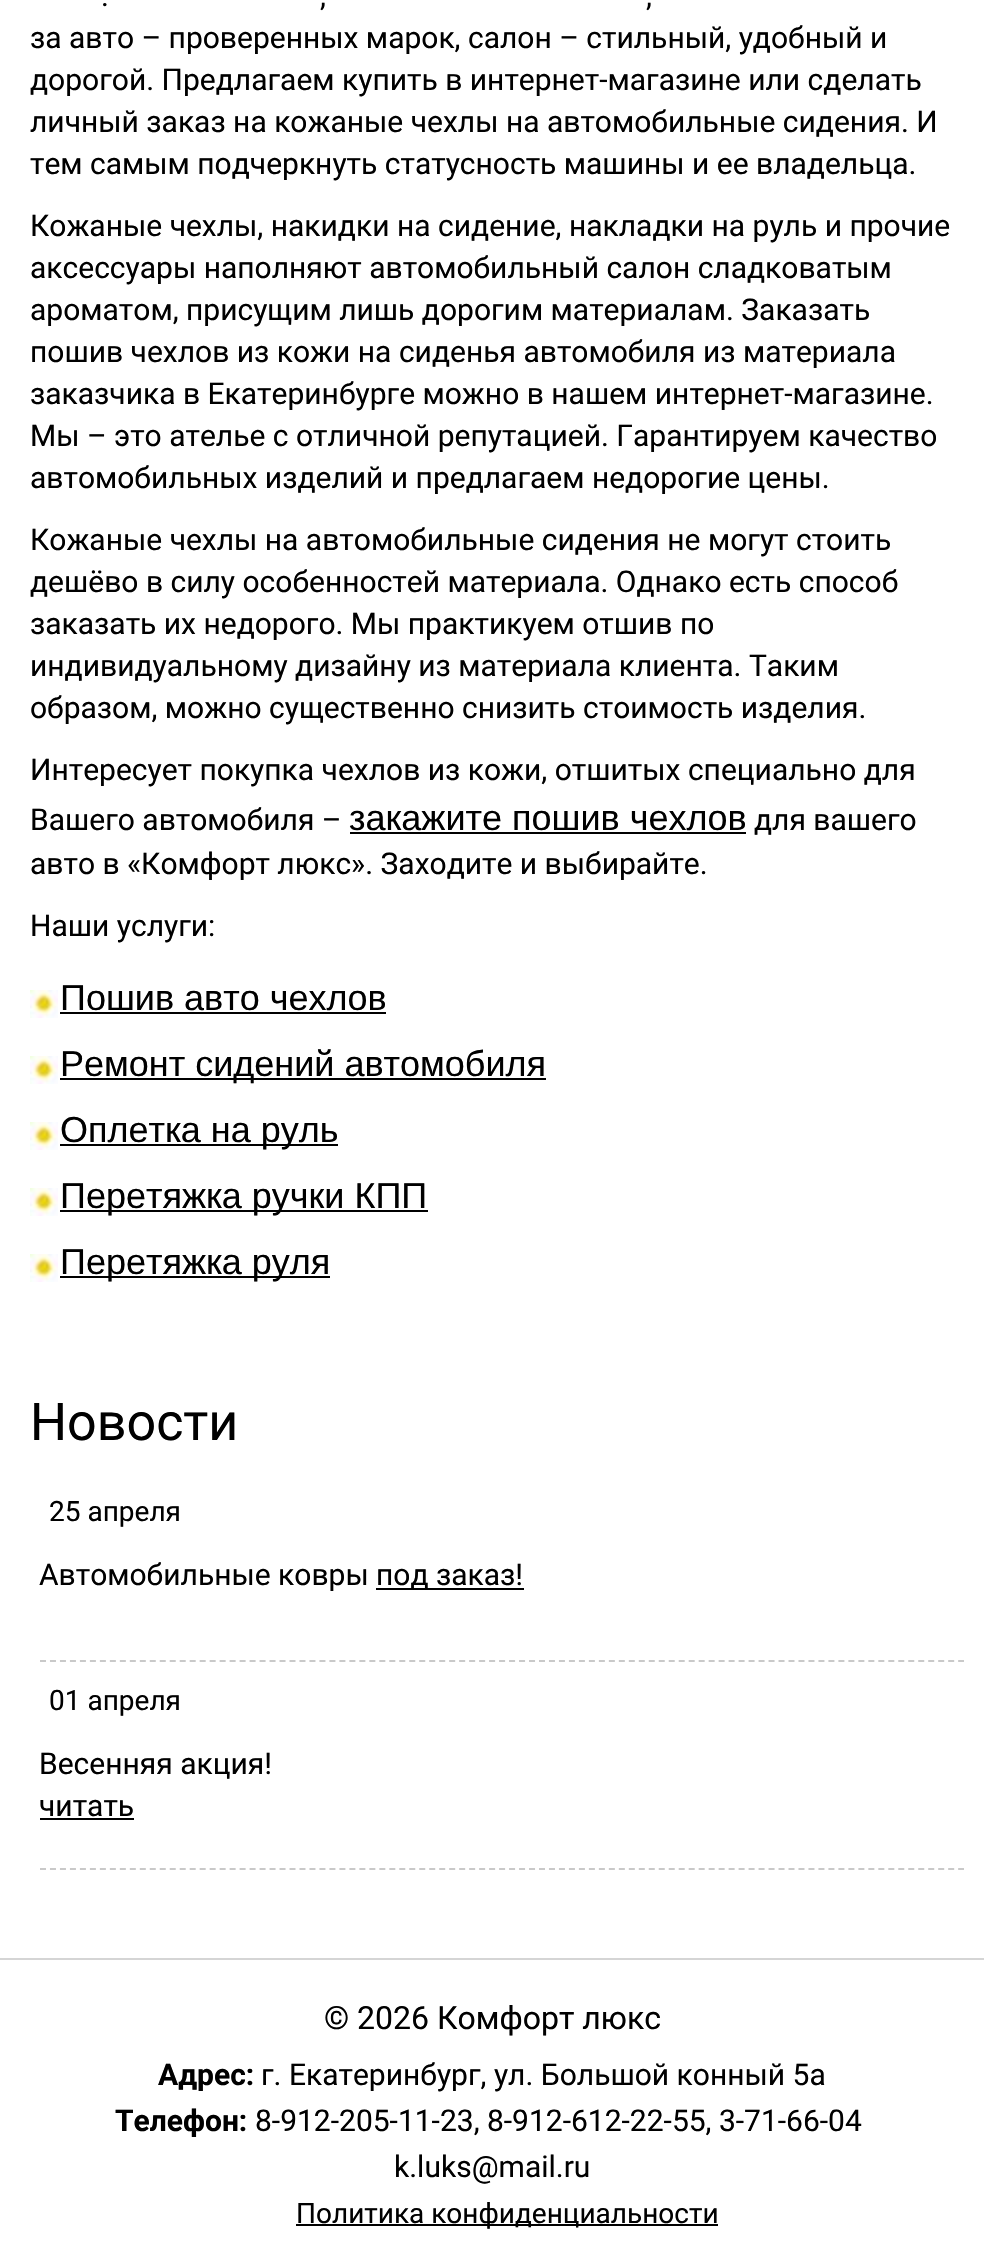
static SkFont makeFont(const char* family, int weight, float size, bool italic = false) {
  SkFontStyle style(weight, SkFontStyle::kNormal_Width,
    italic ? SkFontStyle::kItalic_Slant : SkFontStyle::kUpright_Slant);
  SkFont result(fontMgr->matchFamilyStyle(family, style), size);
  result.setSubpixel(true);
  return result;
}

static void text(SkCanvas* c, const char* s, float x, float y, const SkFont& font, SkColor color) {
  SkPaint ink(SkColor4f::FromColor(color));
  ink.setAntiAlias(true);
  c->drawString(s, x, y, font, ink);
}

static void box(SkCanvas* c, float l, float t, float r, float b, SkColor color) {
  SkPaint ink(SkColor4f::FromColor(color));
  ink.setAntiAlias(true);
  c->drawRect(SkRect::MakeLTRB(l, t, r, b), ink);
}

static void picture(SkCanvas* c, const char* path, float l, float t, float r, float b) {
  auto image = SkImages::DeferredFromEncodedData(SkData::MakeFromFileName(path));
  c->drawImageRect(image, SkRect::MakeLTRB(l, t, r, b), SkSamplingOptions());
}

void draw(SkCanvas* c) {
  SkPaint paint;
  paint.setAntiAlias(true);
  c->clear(0xffffffff);
  SkFont face1 = makeFont("Roboto", 400, 30);
  text(c, ".", 101, 6, face1, 0xff000000);
  text(c, ",", 320, 6, face1, 0xff000000);
  text(c, ",", 646, 6, face1, 0xff000000);
  text(c, "за авто – проверенных марок, салон – стильный, удобный и", 30, 48, face1, 0xff000000);
  text(c, "дорогой. Предлагаем купить в интернет-магазине или сделать", 30, 90, face1, 0xff000000);
  text(c, "личный заказ на кожаные чехлы на автомобильные сидения. И", 30, 132, face1, 0xff000000);
  text(c, "тем самым подчеркнуть статусность машины и ее владельца.", 30, 174, face1, 0xff000000);
  text(c, "Кожаные чехлы, накидки на сидение, накладки на руль и прочие", 30, 236, face1, 0xff000000);
  text(c, "аксессуары наполняют автомобильный салон сладковатым", 30, 278, face1, 0xff000000);
  text(c, "ароматом, присущим лишь дорогим материалам. Заказать", 30, 320, face1, 0xff000000);
  text(c, "пошив чехлов из кожи на сиденья автомобиля из материала", 30, 362, face1, 0xff000000);
  text(c, "заказчика в Екатеринбурге можно в нашем интернет-магазине.", 30, 404, face1, 0xff000000);
  text(c, "Мы – это ателье с отличной репутацией. Гарантируем качество", 30, 446, face1, 0xff000000);
  text(c, "автомобильных изделий и предлагаем недорогие цены.", 30, 488, face1, 0xff000000);
  text(c, "Кожаные чехлы на автомобильные сидения не могут стоить", 30, 550, face1, 0xff000000);
  text(c, "дешёво в силу особенностей материала. Однако есть способ", 30, 592, face1, 0xff000000);
  text(c, "заказать их недорого. Мы практикуем отшив по", 30, 634, face1, 0xff000000);
  text(c, "индивидуальному дизайну из материала клиента. Таким", 30, 676, face1, 0xff000000);
  text(c, "образом, можно существенно снизить стоимость изделия.", 30, 718, face1, 0xff000000);
  text(c, "Интересует покупка чехлов из кожи, отшитых специально для", 30, 780, face1, 0xff000000);
  text(c, "Вашего автомобиля –", 30, 830, face1, 0xff000000);
  SkFont face2 = makeFont("Liberation Sans", 400, 36);
  text(c, "закажите пошив чехлов", 349, 830, face2, 0xff000000);
  box(c, 350, 832, 746, 834, 0xff000000);
  text(c, "для вашего", 754, 830, face1, 0xff000000);
  text(c, "авто в «Комфорт люкс». Заходите и выбирайте.", 30, 874, face1, 0xff000000);
  text(c, "Наши услуги:", 30, 936, face1, 0xff000000);
  picture(c, "img_01.png", 30, 990, 58, 1018);
  text(c, "Пошив авто чехлов", 60, 1010, face2, 0xff000000);
  box(c, 60, 1012, 386, 1014, 0xff000000);
  picture(c, "img_01.png", 30, 1056, 58, 1084);
  box(c, 60, 1078, 546, 1080, 0xff000000);
  text(c, "Ремонт сидений автомобиля", 60, 1076, face2, 0xff000000);
  picture(c, "img_01.png", 30, 1122, 58, 1150);
  box(c, 60, 1144, 338, 1146, 0xff000000);
  text(c, "Оплетка на руль", 60, 1142, face2, 0xff000000);
  picture(c, "img_01.png", 30, 1188, 58, 1216);
  box(c, 60, 1210, 428, 1212, 0xff000000);
  text(c, "Перетяжка ручки КПП", 60, 1208, face2, 0xff000000);
  picture(c, "img_01.png", 30, 1254, 58, 1282);
  box(c, 60, 1276, 330, 1278, 0xff000000);
  text(c, "Перетяжка руля", 60, 1274, face2, 0xff000000);
  SkFont face3 = makeFont("Roboto", 400, 52);
  text(c, "Новости", 30, 1440, face3, 0xff000000);
  paint.setStyle(SkPaint::kStroke_Style);
  paint.setStrokeWidth(2);
  paint.setColor(0xffc9c9c9);
  paint.setPathEffect(SkDashPathEffect::Make({{6, 3.98f}}, 0));
  c->drawPath(SkPathBuilder().moveTo(40, 1661).lineTo(964, 1661).detach(), paint);
  paint.setPathEffect(nullptr);
  SkFont face4 = makeFont("Roboto", 400, 28);
  text(c, "25 апреля", 49, 1521, face4, 0xff000000);
  text(c, "Автомобильные ковры", 39, 1585, face1, 0xff000000);
  box(c, 376, 1588, 524, 1590, 0xff000000);
  text(c, "под заказ!", 376, 1585, face1, 0xff000000);
  paint.setPathEffect(SkDashPathEffect::Make({{6, 3.98f}}, 0));
  c->drawPath(SkPathBuilder().moveTo(40, 1869).lineTo(964, 1869).detach(), paint);
  paint.setPathEffect(nullptr);
  text(c, "01 апреля", 49, 1710, face4, 0xff000000);
  text(c, "Весенняя акция!", 39, 1774, face1, 0xff000000);
  text(c, "читать", 39, 1816, face1, 0xff000000);
  box(c, 40, 1818, 134, 1820, 0xff000000);
  box(c, 0, 1958, 984, 1960, 0xffd5d5d5);
  SkFont face5 = makeFont("Roboto", 400, 32);
  text(c, "© 2026 Комфорт люкс", 324, 2029, face5, 0xff000000);
  SkFont face6 = makeFont("Roboto", 700, 30);
  text(c, "Адрес:", 158, 2085, face6, 0xff000000);
  text(c, "г. Екатеринбург, ул. Большой конный 5а", 261, 2085, face1, 0xff000000);
  text(c, "Телефон:", 115, 2131, face6, 0xff000000);
  text(c, "8-912-205-11-23, 8-912-612-22-55, 3-71-66-04", 255, 2131, face1, 0xff000000);
  text(c, "k.luks@mail.ru", 394, 2177, face1, 0xff000000);
  box(c, 296, 2224, 718, 2226, 0xff000000);
  text(c, "Политика конфиденциальности", 296, 2223, face4, 0xff000000);
}
